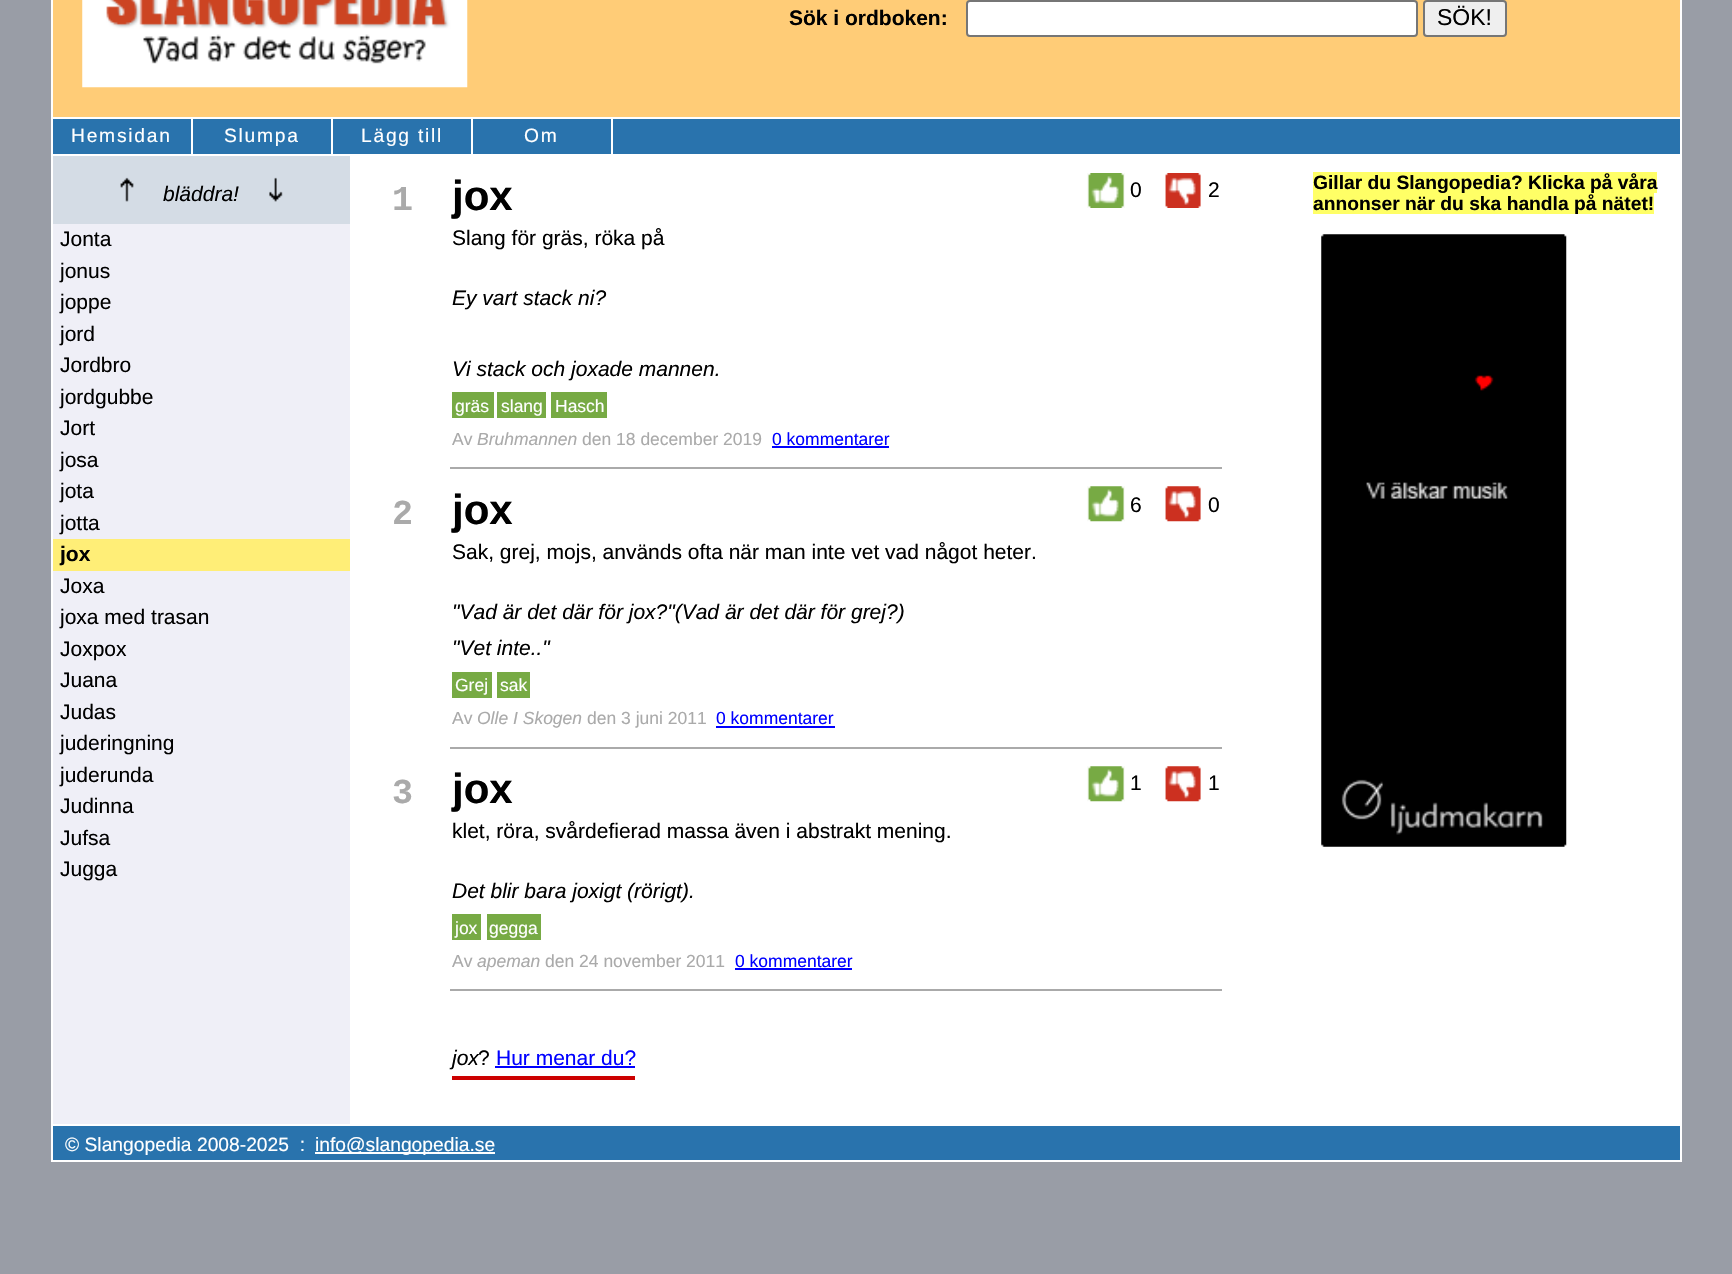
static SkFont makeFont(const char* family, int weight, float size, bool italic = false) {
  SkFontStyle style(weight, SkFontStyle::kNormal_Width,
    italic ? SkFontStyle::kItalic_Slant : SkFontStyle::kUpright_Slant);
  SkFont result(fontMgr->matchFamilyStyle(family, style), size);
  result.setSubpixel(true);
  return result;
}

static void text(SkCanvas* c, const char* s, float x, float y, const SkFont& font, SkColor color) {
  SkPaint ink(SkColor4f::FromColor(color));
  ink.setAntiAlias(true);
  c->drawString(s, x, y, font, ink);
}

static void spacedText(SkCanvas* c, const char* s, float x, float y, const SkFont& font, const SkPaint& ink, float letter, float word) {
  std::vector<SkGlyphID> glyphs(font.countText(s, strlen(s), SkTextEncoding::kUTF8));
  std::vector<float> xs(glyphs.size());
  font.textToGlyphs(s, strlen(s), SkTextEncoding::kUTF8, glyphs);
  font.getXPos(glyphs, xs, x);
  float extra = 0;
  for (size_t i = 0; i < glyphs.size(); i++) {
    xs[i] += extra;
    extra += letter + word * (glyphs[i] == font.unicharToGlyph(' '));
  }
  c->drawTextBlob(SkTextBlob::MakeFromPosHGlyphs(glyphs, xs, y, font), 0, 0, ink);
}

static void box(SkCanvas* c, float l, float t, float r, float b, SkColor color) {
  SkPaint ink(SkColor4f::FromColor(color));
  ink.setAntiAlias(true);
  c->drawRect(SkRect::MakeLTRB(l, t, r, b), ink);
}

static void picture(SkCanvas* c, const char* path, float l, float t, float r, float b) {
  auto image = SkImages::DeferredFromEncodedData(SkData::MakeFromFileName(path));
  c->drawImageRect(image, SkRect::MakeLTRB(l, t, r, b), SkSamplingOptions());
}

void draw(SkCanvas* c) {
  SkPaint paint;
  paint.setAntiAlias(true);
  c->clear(0xff999da6);
  box(c, 51, 0, 1682, 1162, 0xffffffff);
  box(c, 53, 0, 1680, 117, 0xffffcc77);
  picture(c, "img_01.png", 82, 0, 468, 88);
  SkFont face1 = makeFont("Liberation Sans", 700, 21);
  text(c, "Sök i ordboken:", 789, 25, face1, 0xff000000);
  paint.setColor(0xffffffff);
  c->drawRoundRect(SkRect::MakeLTRB(967, 1, 1417, 36), 3, 3, paint);
  paint.setStyle(SkPaint::kStroke_Style);
  paint.setStrokeWidth(2);
  paint.setColor(0xff767676);
  c->drawRoundRect(SkRect::MakeLTRB(967, 1, 1417, 36), 3, 3, paint);
  paint.setStyle(SkPaint::kFill_Style);
  paint.setColor(0xffefefef);
  c->drawRoundRect(SkRect::MakeLTRB(1424, 1, 1506, 36), 3, 3, paint);
  paint.setStyle(SkPaint::kStroke_Style);
  paint.setColor(0xff767676);
  c->drawRoundRect(SkRect::MakeLTRB(1424, 1, 1506, 36), 3, 3, paint);
  SkFont face2 = makeFont("Liberation Sans", 400, 23);
  text(c, "SÖK!", 1437, 25, face2, 0xff000000);
  box(c, 53, 119, 1680, 154, 0xff2973ad);
  box(c, 191, 119, 193, 154, 0xffffffff);
  SkFont face3 = makeFont("Liberation Sans", 400, 19.25f);
  paint.setStyle(SkPaint::kFill_Style);
  paint.setColor(0xffffffff);
  spacedText(c, "Hemsidan", 71, 142, face3, paint, 1.75f, 0);
  box(c, 331, 119, 333, 154, 0xffffffff);
  spacedText(c, "Slumpa", 224, 142, face3, paint, 1.75f, 0);
  box(c, 471, 119, 473, 154, 0xffffffff);
  spacedText(c, "Lägg till", 361, 142, face3, paint, 1.75f, 0);
  box(c, 611, 119, 613, 154, 0xffffffff);
  spacedText(c, "Om", 524, 142, face3, paint, 1.75f, 0);
  box(c, 53, 224, 350, 1124, 0xffefeff7);
  box(c, 53, 156, 350, 224, 0xffd4dce5);
  picture(c, "img_02.png", 120, 177, 134, 202);
  SkFont face4 = makeFont("Liberation Sans", 400, 21, true);
  text(c, "bläddra!", 163, 201, face4, 0xff000000);
  picture(c, "img_03.png", 269, 177, 283, 202);
  SkFont face5 = makeFont("Liberation Sans", 400, 21);
  text(c, "Jonta", 60, 246, face5, 0xff000000);
  text(c, "jonus", 60, 278, face5, 0xff000000);
  text(c, "joppe", 60, 309, face5, 0xff000000);
  text(c, "jord", 60, 341, face5, 0xff000000);
  text(c, "Jordbro", 60, 372, face5, 0xff000000);
  text(c, "jordgubbe", 60, 404, face5, 0xff000000);
  text(c, "Jort", 60, 435, face5, 0xff000000);
  text(c, "josa", 60, 467, face5, 0xff000000);
  text(c, "jota", 60, 498, face5, 0xff000000);
  text(c, "jotta", 60, 530, face5, 0xff000000);
  box(c, 53, 539, 350, 571, 0xffffee77);
  text(c, "jox", 60, 561, face1, 0xff000000);
  text(c, "Joxa", 60, 593, face5, 0xff000000);
  text(c, "joxa med trasan", 60, 624, face5, 0xff000000);
  text(c, "Joxpox", 60, 656, face5, 0xff000000);
  text(c, "Juana", 60, 687, face5, 0xff000000);
  text(c, "Judas", 60, 719, face5, 0xff000000);
  text(c, "juderingning", 60, 750, face5, 0xff000000);
  text(c, "juderunda", 60, 782, face5, 0xff000000);
  text(c, "Judinna", 60, 813, face5, 0xff000000);
  text(c, "Jufsa", 60, 845, face5, 0xff000000);
  text(c, "Jugga", 60, 876, face5, 0xff000000);
  SkFont face6 = makeFont("Liberation Mono", 700, 35);
  text(c, "1", 392, 210, face6, 0xffaaaaaa);
  box(c, 450, 467, 1222, 469, 0xffaaaaaa);
  SkFont face7 = makeFont("Liberation Sans", 700, 42);
  text(c, "jox", 452, 210, face7, 0xff000000);
  picture(c, "img_04.png", 1087, 173, 1125, 208);
  text(c, "0", 1130, 197, face5, 0xff000000);
  picture(c, "img_05.png", 1165, 173, 1201, 208);
  text(c, "2", 1208, 197, face5, 0xff000000);
  text(c, "Slang för gräs, röka på", 452, 245, face5, 0xff000000);
  text(c, "Ey vart stack ni?", 452, 305, face4, 0xff000000);
  text(c, "Vi stack och joxade mannen.", 452, 376, face4, 0xff000000);
  box(c, 452, 392, 494, 418, 0xff77aa44);
  SkFont face8 = makeFont("Liberation Sans", 400, 17.5f);
  text(c, "gräs", 455, 412, face8, 0xffffffff);
  box(c, 497, 392, 546, 418, 0xff77aa44);
  text(c, "slang", 501, 412, face8, 0xffffffff);
  box(c, 551, 392, 607, 418, 0xff77aa44);
  text(c, "Hasch", 555, 412, face8, 0xffffffff);
  text(c, "Av", 452, 445, face8, 0xffaaaaaa);
  SkFont face9 = makeFont("Liberation Sans", 400, 17.5f, true);
  text(c, "Bruhmannen", 477, 445, face9, 0xffaaaaaa);
  text(c, "den 18 december 2019", 582, 445, face8, 0xffaaaaaa);
  text(c, "0 kommentarer", 772, 445, face8, 0xff0000ff);
  box(c, 772, 446, 889, 448, 0xff0000ff);
  text(c, "2", 392, 524, face6, 0xffaaaaaa);
  box(c, 450, 747, 1222, 749, 0xffaaaaaa);
  text(c, "jox", 452, 524, face7, 0xff000000);
  picture(c, "img_06.png", 1087, 486, 1125, 522);
  text(c, "6", 1130, 512, face5, 0xff000000);
  picture(c, "img_07.png", 1165, 486, 1201, 522);
  text(c, "0", 1208, 512, face5, 0xff000000);
  text(c, "Sak, grej, mojs, används ofta när man inte vet vad något heter.", 452, 559, face5, 0xff000000);
  text(c, "\"Vad är det där för jox?\"(Vad är det där för grej?)", 452, 619, face4, 0xff000000);
  text(c, "\"Vet inte..\"", 452, 655, face4, 0xff000000);
  box(c, 452, 672, 492, 698, 0xff77aa44);
  text(c, "Grej", 455, 691, face8, 0xffffffff);
  box(c, 497, 672, 530, 698, 0xff77aa44);
  text(c, "sak", 500, 691, face8, 0xffffffff);
  text(c, "Av", 452, 724, face8, 0xffaaaaaa);
  text(c, "Olle I Skogen", 477, 724, face9, 0xffaaaaaa);
  text(c, "den 3 juni 2011", 587, 724, face8, 0xffaaaaaa);
  text(c, "0 kommentarer", 716, 724, face8, 0xff0000ff);
  box(c, 716, 726, 835, 728, 0xff0000ff);
  text(c, "3", 392, 803, face6, 0xffaaaaaa);
  box(c, 450, 989, 1222, 991, 0xffaaaaaa);
  text(c, "jox", 452, 803, face7, 0xff000000);
  picture(c, "img_06.png", 1087, 766, 1125, 802);
  text(c, "1", 1130, 790, face5, 0xff000000);
  picture(c, "img_07.png", 1165, 766, 1201, 802);
  text(c, "1", 1208, 790, face5, 0xff000000);
  text(c, "klet, röra, svårdefierad massa även i abstrakt mening.", 452, 838, face5, 0xff000000);
  text(c, "Det blir bara joxigt (rörigt).", 452, 898, face4, 0xff000000);
  box(c, 452, 914, 481, 940, 0xff77aa44);
  text(c, "jox", 455, 934, face8, 0xffffffff);
  box(c, 487, 914, 541, 940, 0xff77aa44);
  text(c, "gegga", 489, 934, face8, 0xffffffff);
  text(c, "Av", 452, 967, face8, 0xffaaaaaa);
  text(c, "apeman", 477, 967, face9, 0xffaaaaaa);
  text(c, "den 24 november 2011", 545, 967, face8, 0xffaaaaaa);
  text(c, "0 kommentarer", 735, 967, face8, 0xff0000ff);
  box(c, 735, 968, 852, 970, 0xff0000ff);
  text(c, "jox", 452, 1065, face4, 0xff000000);
  box(c, 452, 1076, 635, 1080, 0xffcc0000);
  text(c, "?", 478, 1065, face5, 0xff000000);
  text(c, "Hur menar du?", 496, 1065, face5, 0xff0000ff);
  box(c, 495, 1066, 635, 1068, 0xff0000ff);
  box(c, 1313, 172, 1657, 193, 0xffffff66);
  box(c, 1313, 193, 1654, 214, 0xffffff66);
  SkFont face10 = makeFont("Liberation Sans", 700, 19.25f);
  text(c, "Gillar du Slangopedia? Klicka på våra", 1313, 189, face10, 0xff000000);
  text(c, "annonser när du ska handla på nätet!", 1313, 210, face10, 0xff000000);
  picture(c, "img_08.png", 1321, 234, 1567, 847);
  box(c, 53, 1126, 1680, 1160, 0xff2973ad);
  text(c, "© Slangopedia 2008-2025  :", 65, 1151, face3, 0xffffffff);
  box(c, 315, 1152, 495, 1154, 0xffffffff);
  text(c, "info@slangopedia.se", 315, 1151, face3, 0xffffffff);
}
